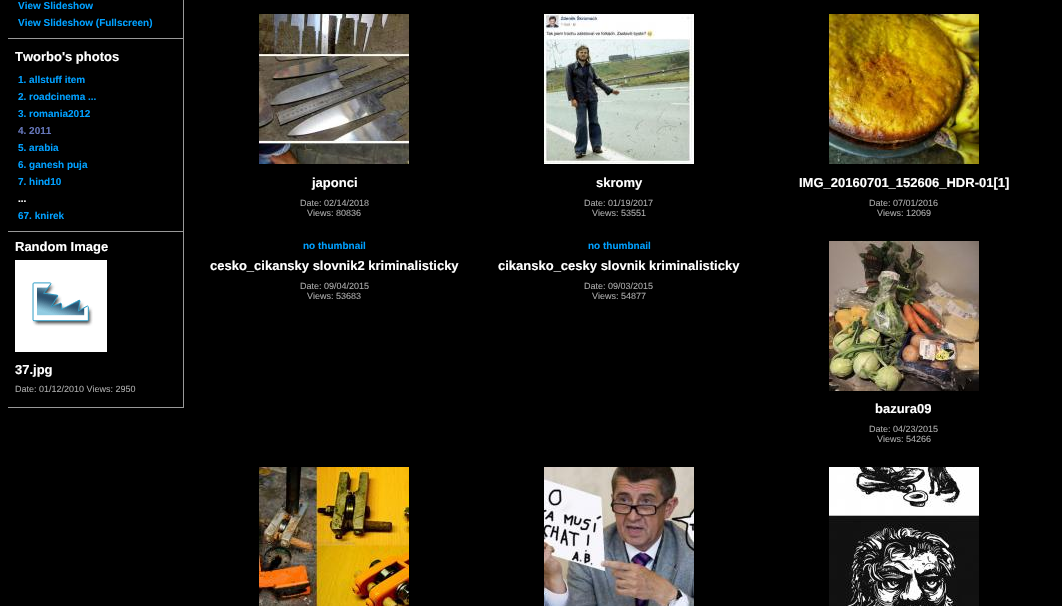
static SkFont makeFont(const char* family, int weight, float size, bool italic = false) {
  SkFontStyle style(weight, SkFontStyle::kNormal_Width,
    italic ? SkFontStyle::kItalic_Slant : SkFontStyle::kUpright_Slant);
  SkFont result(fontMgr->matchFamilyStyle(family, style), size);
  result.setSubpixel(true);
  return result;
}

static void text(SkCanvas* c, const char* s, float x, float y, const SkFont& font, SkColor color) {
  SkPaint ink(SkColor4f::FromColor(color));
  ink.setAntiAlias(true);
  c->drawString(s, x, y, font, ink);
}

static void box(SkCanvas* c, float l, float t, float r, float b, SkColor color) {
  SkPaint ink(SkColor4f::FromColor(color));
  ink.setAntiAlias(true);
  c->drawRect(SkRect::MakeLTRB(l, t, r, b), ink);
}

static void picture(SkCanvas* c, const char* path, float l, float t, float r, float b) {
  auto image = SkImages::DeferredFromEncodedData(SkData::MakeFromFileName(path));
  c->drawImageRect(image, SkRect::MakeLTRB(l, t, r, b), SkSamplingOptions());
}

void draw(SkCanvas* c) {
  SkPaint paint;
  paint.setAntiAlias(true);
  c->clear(0xff000000);
  box(c, 183, 0, 184, 408, 0xff999999);
  box(c, 8, 38, 183, 39, 0xff999999);
  SkFont face1 = makeFont("Liberation Sans", 700, 10);
  text(c, "View Slideshow", 18, 9, face1, 0xff00a0ff);
  text(c, "View Slideshow (Fullscreen)", 18, 26, face1, 0xff00a0ff);
  box(c, 8, 231, 183, 232, 0xff999999);
  SkFont face2 = makeFont("Liberation Sans", 700, 13);
  text(c, "Tworbo's photos", 15, 61, face2, 0xffffffff);
  text(c, "1. allstuff item", 18, 83, face1, 0xff00a0ff);
  text(c, "2. roadcinema ...", 18, 100, face1, 0xff00a0ff);
  text(c, "3. romania2012", 18, 117, face1, 0xff00a0ff);
  text(c, "4. 2011", 18, 134, face1, 0xff6677bb);
  text(c, "5. arabia", 18, 151, face1, 0xff00a0ff);
  text(c, "6. ganesh puja", 18, 168, face1, 0xff00a0ff);
  text(c, "7. hind10", 18, 185, face1, 0xff00a0ff);
  text(c, "...", 18, 202, face1, 0xffffffff);
  text(c, "67. knirek", 18, 219, face1, 0xff00a0ff);
  box(c, 8, 407, 183, 408, 0xff999999);
  text(c, "Random Image", 15, 251, face2, 0xffffffff);
  picture(c, "img_01.png", 15, 260, 107, 352);
  text(c, "37.jpg", 15, 374, face2, 0xffffffff);
  SkFont face3 = makeFont("Liberation Sans", 400, 9);
  text(c, "Date: 01/12/2010 Views: 2950", 15, 392, face3, 0xffaaaaaa);
  picture(c, "img_02.png", 259, 14, 409, 164);
  text(c, "japonci", 312, 187, face2, 0xffffffff);
  text(c, "Date: 02/14/2018", 300, 206, face3, 0xffaaaaaa);
  text(c, "Views: 80836", 307, 216, face3, 0xffaaaaaa);
  picture(c, "img_03.png", 544, 14, 694, 164);
  text(c, "skromy", 596, 187, face2, 0xffffffff);
  text(c, "Date: 01/19/2017", 584, 206, face3, 0xffaaaaaa);
  text(c, "Views: 53551", 592, 216, face3, 0xffaaaaaa);
  picture(c, "img_04.png", 829, 14, 979, 164);
  text(c, "IMG_20160701_152606_HDR-01[1]", 799, 187, face2, 0xffffffff);
  text(c, "Date: 07/01/2016", 869, 206, face3, 0xffaaaaaa);
  text(c, "Views: 12069", 877, 216, face3, 0xffaaaaaa);
  text(c, "no thumbnail", 303, 249, face1, 0xff00a0ff);
  text(c, "cesko_cikansky slovnik2 kriminalisticky", 210, 270, face2, 0xffffffff);
  text(c, "Date: 09/04/2015", 300, 289, face3, 0xffaaaaaa);
  text(c, "Views: 53683", 307, 299, face3, 0xffaaaaaa);
  text(c, "no thumbnail", 588, 249, face1, 0xff00a0ff);
  text(c, "cikansko_cesky slovnik kriminalisticky", 498, 270, face2, 0xffffffff);
  text(c, "Date: 09/03/2015", 584, 289, face3, 0xffaaaaaa);
  text(c, "Views: 54877", 592, 299, face3, 0xffaaaaaa);
  picture(c, "img_05.png", 829, 241, 979, 391);
  text(c, "bazura09", 875, 413, face2, 0xffffffff);
  text(c, "Date: 04/23/2015", 869, 432, face3, 0xffaaaaaa);
  text(c, "Views: 54266", 877, 442, face3, 0xffaaaaaa);
  picture(c, "img_06.png", 259, 467, 409, 606);
  picture(c, "img_07.png", 544, 467, 694, 606);
  picture(c, "img_08.png", 829, 467, 979, 606);
}
